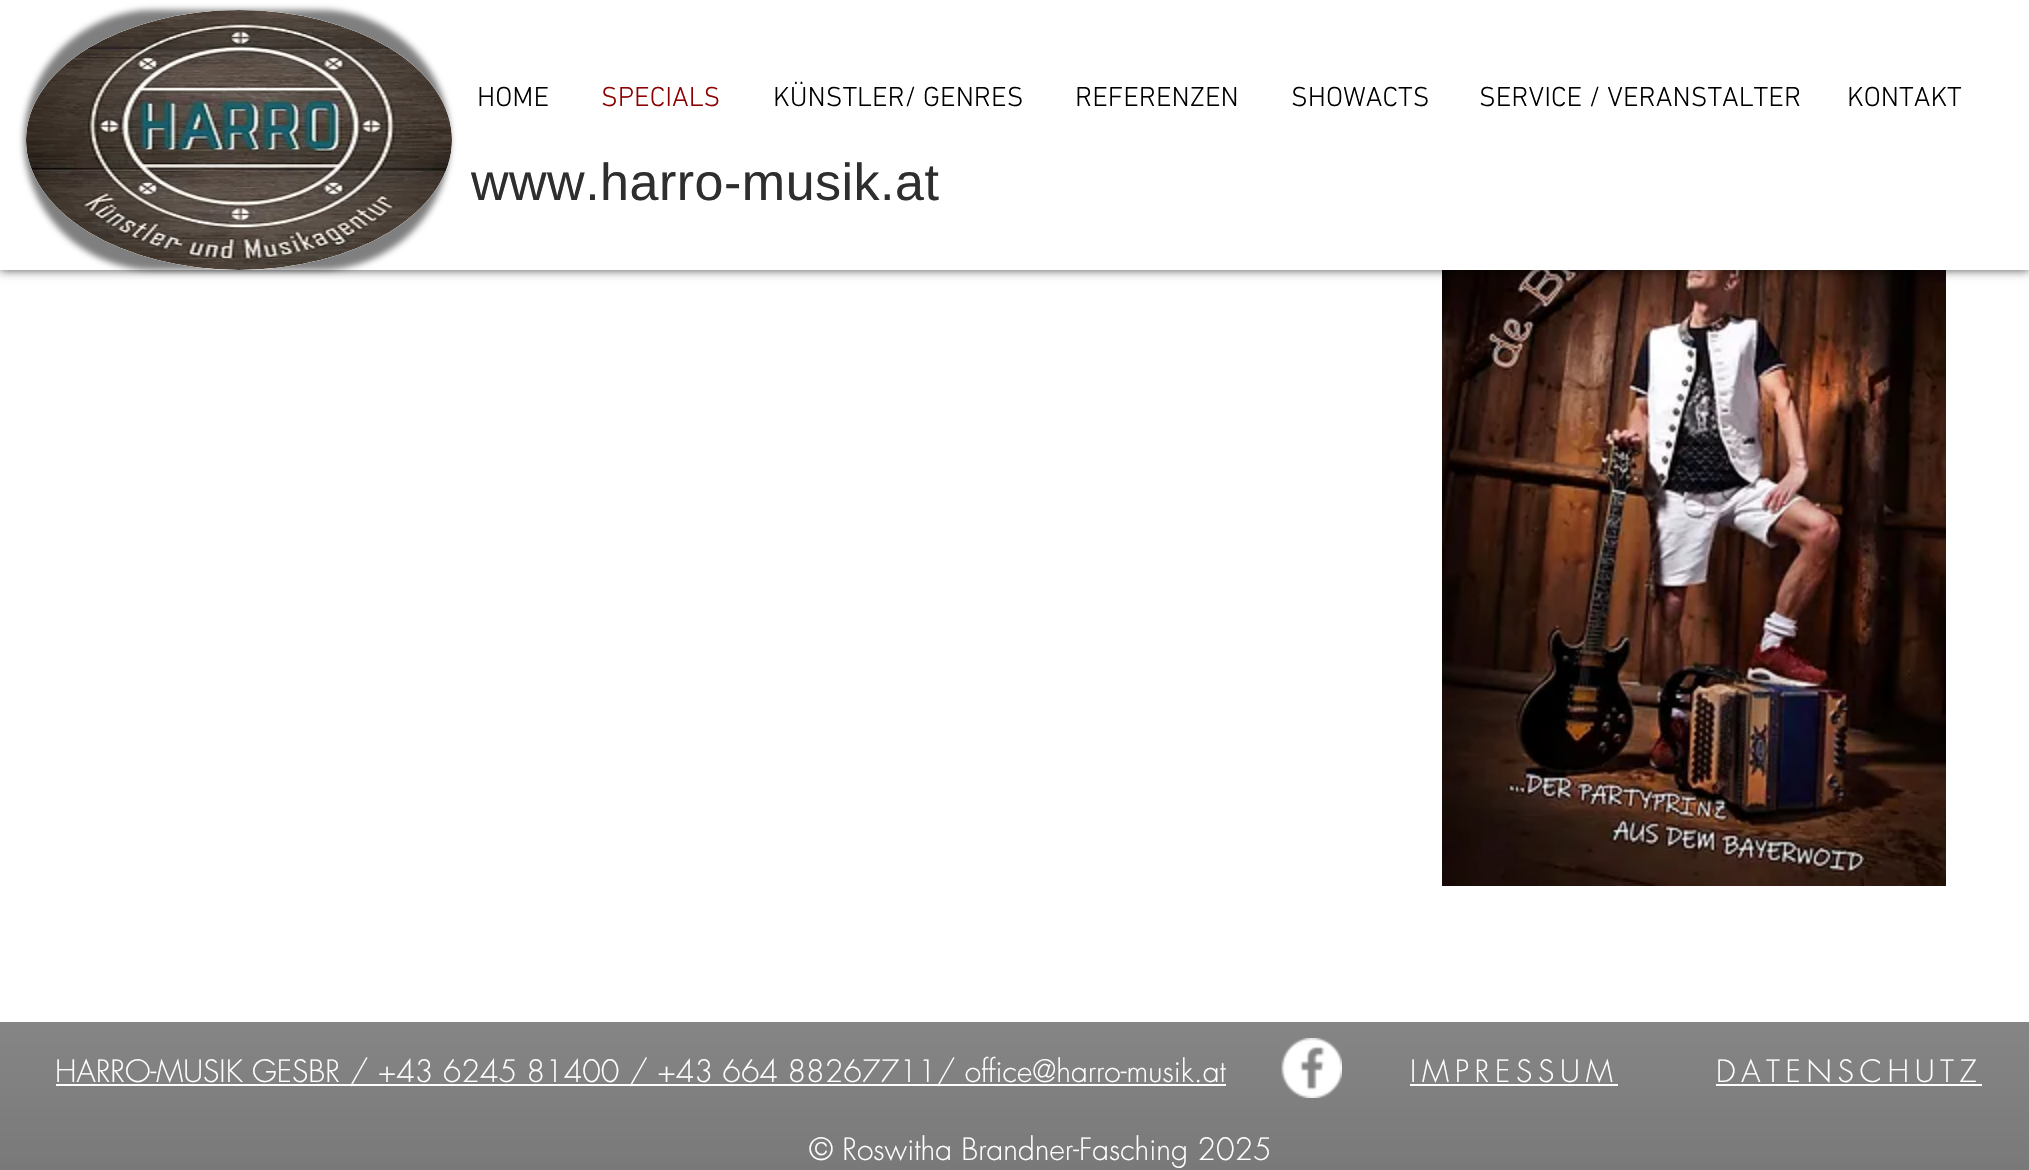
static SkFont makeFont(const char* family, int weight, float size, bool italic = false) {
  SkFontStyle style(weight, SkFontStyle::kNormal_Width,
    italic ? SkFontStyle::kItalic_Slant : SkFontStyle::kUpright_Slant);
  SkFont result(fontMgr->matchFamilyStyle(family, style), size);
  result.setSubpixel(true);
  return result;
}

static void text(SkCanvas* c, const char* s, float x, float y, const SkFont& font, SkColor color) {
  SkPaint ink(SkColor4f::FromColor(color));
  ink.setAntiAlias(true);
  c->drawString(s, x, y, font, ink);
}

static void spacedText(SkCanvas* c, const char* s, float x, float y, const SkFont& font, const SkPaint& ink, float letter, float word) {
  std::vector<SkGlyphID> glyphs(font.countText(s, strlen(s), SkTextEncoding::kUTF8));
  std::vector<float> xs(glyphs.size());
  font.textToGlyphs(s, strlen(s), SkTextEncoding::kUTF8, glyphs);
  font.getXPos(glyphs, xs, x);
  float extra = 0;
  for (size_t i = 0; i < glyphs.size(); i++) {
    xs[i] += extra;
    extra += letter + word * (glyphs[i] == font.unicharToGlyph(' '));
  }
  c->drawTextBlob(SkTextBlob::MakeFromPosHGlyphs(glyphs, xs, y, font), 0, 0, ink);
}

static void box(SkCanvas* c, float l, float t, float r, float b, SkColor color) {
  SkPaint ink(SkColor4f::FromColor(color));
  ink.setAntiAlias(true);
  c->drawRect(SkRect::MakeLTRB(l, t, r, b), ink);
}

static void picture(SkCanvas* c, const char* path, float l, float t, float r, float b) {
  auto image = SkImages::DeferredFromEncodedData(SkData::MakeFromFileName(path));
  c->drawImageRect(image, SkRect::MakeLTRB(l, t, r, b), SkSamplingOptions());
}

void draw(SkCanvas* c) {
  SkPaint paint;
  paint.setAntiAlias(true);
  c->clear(0xffffffff);
  picture(c, "img_02.png", 1442, 270, 1946, 886);
  paint.setColor(0xb3000000);
  paint.setMaskFilter(SkMaskFilter::MakeBlur(kNormal_SkBlurStyle, 5));
  c->drawRect(SkRect::MakeLTRB(0, 0, 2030, 270), paint);
  paint.setMaskFilter(nullptr);
  box(c, 0, 0, 2029, 270, 0xffffffff);
  paint.setColor(0x80000000);
  paint.setMaskFilter(SkMaskFilter::MakeBlur(kNormal_SkBlurStyle, 3));
  c->drawRoundRect(SkRect::MakeLTRB(24, 10, 450, 270), 130, 130, paint);
  paint.setMaskFilter(nullptr);
  paint.setColor(0xf5ffffff);
  c->drawOval(SkRect::MakeLTRB(26, 10, 452, 270), paint);
  picture(c, "img_01.png", 26, 10, 452, 270);
  SkFont face1 = makeFont("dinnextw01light", 300, 28);
  text(c, "HOME", 477, 106, face1, 0xff000000);
  text(c, "SPECIALS", 601, 106, face1, 0xff8b0000);
  text(c, "KÜNSTLER/ GENRES", 773, 106, face1, 0xff000000);
  text(c, "REFERENZEN", 1075, 106, face1, 0xff000000);
  text(c, "SHOWACTS", 1291, 106, face1, 0xff000000);
  text(c, "SERVICE / VERANSTALTER", 1479, 106, face1, 0xff000000);
  text(c, "KONTAKT", 1847, 106, face1, 0xff000000);
  SkFont face2 = makeFont("Liberation Sans", 400, 52);
  paint.setColor(0xff2f2e2e);
  spacedText(c, "www.harro-musik.at", 471, 200, face2, paint, 0.5f, 0);
  box(c, 0, 1022, 2029, 1170, 0xff5b5b5b);
  picture(c, "img_03.png", 0, 1022, 2029, 1170);
  box(c, 56, 1084, 1226, 1086, 0xffffffff);
  SkFont face3 = makeFont("futura", 300, 30);
  text(c, "HARRO-MUSIK GESBR / +43 6245 81400 / +43 664 88267711/ office@harro-musik.at", 55, 1082, face3, 0xffffffff);
  picture(c, "img_04.png", 1281, 1038, 1342, 1098);
  paint.setColor(0xffffffff);
  spacedText(c, "IMPRESSUM", 1410, 1082, face3, paint, 5.75f, 0);
  box(c, 1410, 1084, 1618, 1086, 0xffffffff);
  spacedText(c, "DATENSCHUTZ", 1716, 1082, face3, paint, 5.75f, 0);
  box(c, 1716, 1084, 1982, 1086, 0xffffffff);
  text(c, "© Roswitha Brandner-Fasching 2025", 809, 1160, face3, 0xffffffff);
}
